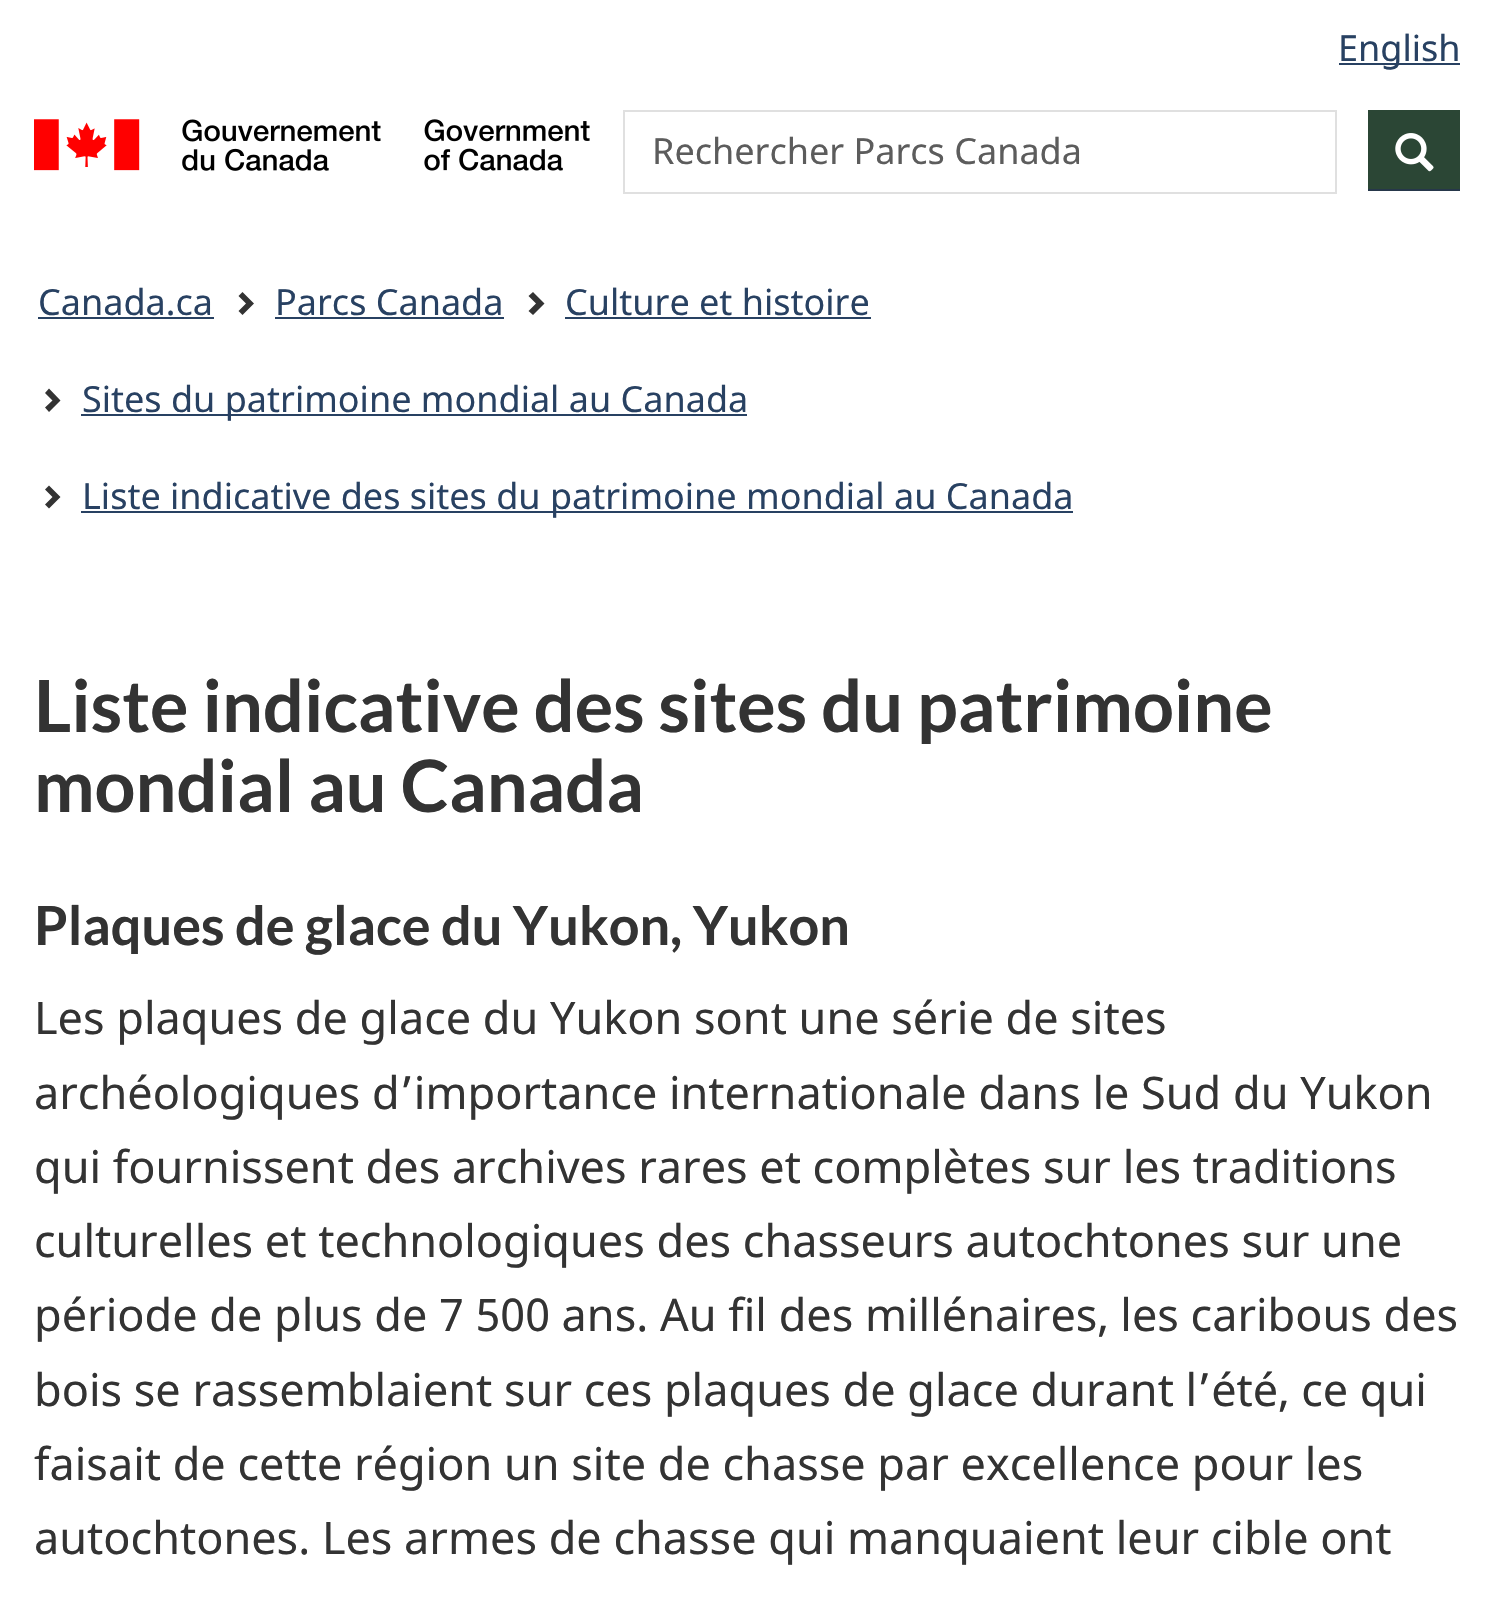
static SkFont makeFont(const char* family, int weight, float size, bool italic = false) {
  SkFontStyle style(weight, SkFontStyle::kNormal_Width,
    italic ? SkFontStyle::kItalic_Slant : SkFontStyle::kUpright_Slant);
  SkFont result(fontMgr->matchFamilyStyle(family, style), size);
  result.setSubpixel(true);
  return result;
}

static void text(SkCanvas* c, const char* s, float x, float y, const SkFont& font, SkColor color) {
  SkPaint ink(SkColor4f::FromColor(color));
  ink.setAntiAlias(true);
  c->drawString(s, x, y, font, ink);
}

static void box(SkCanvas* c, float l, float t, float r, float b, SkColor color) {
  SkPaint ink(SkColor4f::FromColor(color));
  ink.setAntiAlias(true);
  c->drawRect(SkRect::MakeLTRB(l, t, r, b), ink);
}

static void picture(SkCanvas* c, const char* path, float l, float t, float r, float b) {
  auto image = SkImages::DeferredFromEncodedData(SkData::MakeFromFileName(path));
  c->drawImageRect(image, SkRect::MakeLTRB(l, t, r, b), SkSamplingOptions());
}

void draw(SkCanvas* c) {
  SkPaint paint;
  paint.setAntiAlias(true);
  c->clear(0xffffffff);
  box(c, 1339, 63, 1460, 65, 0xff284162);
  SkFont face1 = makeFont("Noto Sans", 400, 36);
  text(c, "English", 1338, 61, face1, 0xff284162);
  picture(c, "img_01.png", 34, 119, 590, 171);
  paint.setStyle(SkPaint::kStroke_Style);
  paint.setStrokeWidth(2);
  paint.setColor(0xffe0e0e0);
  c->drawRect(SkRect::MakeLTRB(624, 111, 1336, 193), paint);
  text(c, "Rechercher Parcs Canada", 652, 164, face1, 0xff5c5c5c);
  box(c, 1368, 110, 1460, 189, 0xff2b4635);
  box(c, 1368, 189, 1460, 191, 0xff26374a);
  picture(c, "img_02.png", 1395, 133, 1434, 172);
  text(c, "Canada.ca", 38, 315, face1, 0xff284162);
  box(c, 38, 317, 214, 319, 0xff284162);
  paint.setStyle(SkPaint::kFill_Style);
  paint.setColor(0xff333333);
  c->drawPath(SkPathBuilder().moveTo(254, 303.5f).lineTo(242.5f, 315).lineTo(238.5f, 311).lineTo(246, 303.5f).lineTo(238.5f, 296).lineTo(242.5f, 292).close().detach(), paint);
  text(c, "Parcs Canada", 275, 315, face1, 0xff284162);
  box(c, 275, 317, 504, 319, 0xff284162);
  c->drawPath(SkPathBuilder().moveTo(544.5f, 303.5f).lineTo(533, 315).lineTo(528.5f, 311).lineTo(536, 303.5f).lineTo(528.5f, 296).lineTo(533, 292).close().detach(), paint);
  text(c, "Culture et histoire", 565, 315, face1, 0xff284162);
  box(c, 565, 317, 871, 319, 0xff284162);
  c->drawPath(SkPathBuilder().moveTo(60.5f, 400.5f).lineTo(49, 412).lineTo(45, 407.5f).lineTo(52.5f, 400.5f).lineTo(45, 393).lineTo(49, 388.5f).close().detach(), paint);
  box(c, 81, 414, 747, 416, 0xff284162);
  text(c, "Sites du patrimoine mondial au Canada", 82, 412, face1, 0xff284162);
  c->drawPath(SkPathBuilder().moveTo(60.5f, 497).lineTo(49, 508.5f).lineTo(45, 504.5f).lineTo(52.5f, 497).lineTo(45, 489.5f).lineTo(49, 485.5f).close().detach(), paint);
  box(c, 81, 511, 1073, 513, 0xff284162);
  text(c, "Liste indicative des sites du patrimoine mondial au Canada", 82, 509, face1, 0xff284162);
  SkFont face2 = makeFont("Lato", 700, 72);
  text(c, "Liste indicative des sites du patrimoine", 34, 732, face2, 0xff333333);
  text(c, "mondial au Canada", 34, 812, face2, 0xff333333);
  SkFont face3 = makeFont("Lato", 700, 54);
  text(c, "Plaques de glace du Yukon, Yukon", 34, 945, face3, 0xff333333);
  SkFont face4 = makeFont("Noto Sans", 400, 45);
  text(c, "Les plaques de glace du Yukon sont une série de sites", 34, 1034, face4, 0xff333333);
  text(c, "archéologiques d’importance internationale dans le Sud du Yukon", 34, 1109, face4, 0xff333333);
  text(c, "qui fournissent des archives rares et complètes sur les traditions", 34, 1183, face4, 0xff333333);
  text(c, "culturelles et technologiques des chasseurs autochtones sur une", 34, 1257, face4, 0xff333333);
  text(c, "période de plus de 7 500 ans. Au fil des millénaires, les caribous des", 34, 1331, face4, 0xff333333);
  text(c, "bois se rassemblaient sur ces plaques de glace durant l’été, ce qui", 34, 1406, face4, 0xff333333);
  text(c, "faisait de cette région un site de chasse par excellence pour les", 34, 1480, face4, 0xff333333);
  text(c, "autochtones. Les armes de chasse qui manquaient leur cible ont", 34, 1554, face4, 0xff333333);
}
